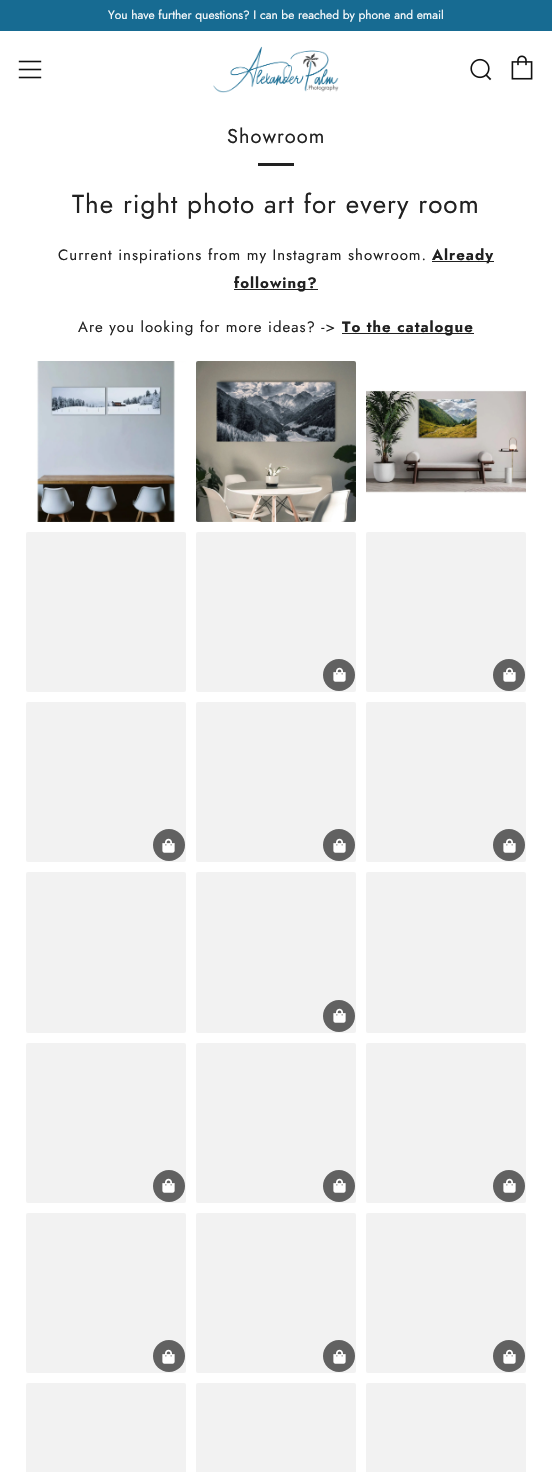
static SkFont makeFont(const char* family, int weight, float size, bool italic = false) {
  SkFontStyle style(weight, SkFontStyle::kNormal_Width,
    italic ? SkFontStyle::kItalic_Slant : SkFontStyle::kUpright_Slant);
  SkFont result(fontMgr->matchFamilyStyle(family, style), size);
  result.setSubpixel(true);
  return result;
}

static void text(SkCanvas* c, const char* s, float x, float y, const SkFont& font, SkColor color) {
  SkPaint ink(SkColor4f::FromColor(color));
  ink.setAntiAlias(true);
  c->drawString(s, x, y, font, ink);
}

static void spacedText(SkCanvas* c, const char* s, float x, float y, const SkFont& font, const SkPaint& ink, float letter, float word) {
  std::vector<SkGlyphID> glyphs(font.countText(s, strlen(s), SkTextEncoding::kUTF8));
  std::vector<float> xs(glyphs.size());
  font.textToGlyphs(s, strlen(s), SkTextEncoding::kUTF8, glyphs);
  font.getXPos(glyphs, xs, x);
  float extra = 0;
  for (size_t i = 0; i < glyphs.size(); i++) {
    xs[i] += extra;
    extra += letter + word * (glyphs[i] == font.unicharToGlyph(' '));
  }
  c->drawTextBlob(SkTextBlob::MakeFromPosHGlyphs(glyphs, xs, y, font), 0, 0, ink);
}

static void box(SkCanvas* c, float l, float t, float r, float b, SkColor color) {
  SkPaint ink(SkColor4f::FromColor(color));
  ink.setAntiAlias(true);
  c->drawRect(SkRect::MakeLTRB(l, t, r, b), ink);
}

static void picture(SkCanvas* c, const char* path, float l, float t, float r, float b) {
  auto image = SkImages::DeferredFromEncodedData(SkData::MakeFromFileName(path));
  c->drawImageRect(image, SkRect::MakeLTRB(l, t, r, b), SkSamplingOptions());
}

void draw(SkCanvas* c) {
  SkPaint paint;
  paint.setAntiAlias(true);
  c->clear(0xffffffff);
  box(c, 0, 0, 552, 31, 0xff176b92);
  SkFont face1 = makeFont("Jost", 400, 12);
  text(c, "You have further questions? I can be reached by phone and email", 108, 19, face1, 0xffffffff);
  picture(c, "img_01.png", 18, 60, 42, 79);
  picture(c, "img_02.png", 213, 46, 339, 93);
  picture(c, "img_03.png", 470, 58, 492, 81);
  picture(c, "img_04.png", 511, 55, 533, 80);
  SkFont face2 = makeFont("Jost", 400, 20);
  paint.setColor(0xff212121);
  spacedText(c, "Showroom", 227, 143, face2, paint, 1, 0);
  box(c, 258, 163, 294, 166, 0xff212121);
  SkFont face3 = makeFont("Jost", 400, 26);
  spacedText(c, "The right photo art for every room", 72, 213, face3, paint, 1, 0);
  SkFont face4 = makeFont("Jost", 400, 15);
  spacedText(c, "Current inspirations from my Instagram showroom.", 58, 260, face4, paint, 1, 0);
  box(c, 432, 261, 494, 262, 0xff212121);
  SkFont face5 = makeFont("Jost", 700, 15);
  spacedText(c, "Already", 432, 260, face5, paint, 1, 0);
  box(c, 234, 289, 318, 290, 0xff212121);
  spacedText(c, "following?", 234, 288, face5, paint, 1, 0);
  spacedText(c, "Are you looking for more ideas? ->", 78, 332, face4, paint, 1, 0);
  box(c, 342, 333, 474, 334, 0xff212121);
  spacedText(c, "To the catalogue", 342, 332, face5, paint, 1, 0);
  picture(c, "img_05.png", 26, 361, 186, 522);
  picture(c, "img_06.png", 196, 361, 356, 522);
  picture(c, "img_07.png", 366, 361, 526, 522);
  {
    const SkColor colors[] = {0xfff2f2f2, 0xffe6e6e6, 0xfff2f2f2};
    const float stops[] = {0.25f, 0.37f, 0.63f};
    const SkPoint ends[] = {{26, 612}, {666, 612}};
    paint.setShader(SkGradientShader::MakeLinear(ends, colors, stops, 3, SkTileMode::kClamp));
    paint.setAlpha(255);
  }
  c->drawRoundRect(SkRect::MakeLTRB(26, 532, 186, 692), 2, 2, paint);
  {
    const SkColor colors[] = {0xfff2f2f2, 0xffe6e6e6, 0xfff2f2f2};
    const float stops[] = {0.25f, 0.37f, 0.63f};
    const SkPoint ends[] = {{196, 612}, {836, 612}};
    paint.setShader(SkGradientShader::MakeLinear(ends, colors, stops, 3, SkTileMode::kClamp));
    paint.setAlpha(255);
  }
  c->drawRoundRect(SkRect::MakeLTRB(196, 532, 356, 692), 2, 2, paint);
  paint.setShader(nullptr);
  paint.setColor(0xff616161);
  c->drawCircle(339, 675, 16, paint);
  picture(c, "img_08.png", 333, 667, 346, 682);
  {
    const SkColor colors[] = {0xfff2f2f2, 0xffe6e6e6, 0xfff2f2f2};
    const float stops[] = {0.25f, 0.37f, 0.63f};
    const SkPoint ends[] = {{366, 612}, {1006, 612}};
    paint.setShader(SkGradientShader::MakeLinear(ends, colors, stops, 3, SkTileMode::kClamp));
    paint.setAlpha(255);
  }
  c->drawRoundRect(SkRect::MakeLTRB(366, 532, 526, 692), 2, 2, paint);
  paint.setShader(nullptr);
  paint.setColor(0xff616161);
  c->drawCircle(509, 675, 16, paint);
  picture(c, "img_08.png", 503, 667, 516, 682);
  {
    const SkColor colors[] = {0xfff2f2f2, 0xffe6e6e6, 0xfff2f2f2};
    const float stops[] = {0.25f, 0.37f, 0.63f};
    const SkPoint ends[] = {{26, 782}, {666, 782}};
    paint.setShader(SkGradientShader::MakeLinear(ends, colors, stops, 3, SkTileMode::kClamp));
    paint.setAlpha(255);
  }
  c->drawRoundRect(SkRect::MakeLTRB(26, 702, 186, 862), 2, 2, paint);
  paint.setShader(nullptr);
  paint.setColor(0xff616161);
  c->drawCircle(169, 845, 16, paint);
  picture(c, "img_08.png", 162, 838, 175, 853);
  {
    const SkColor colors[] = {0xfff2f2f2, 0xffe6e6e6, 0xfff2f2f2};
    const float stops[] = {0.25f, 0.37f, 0.63f};
    const SkPoint ends[] = {{196, 782}, {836, 782}};
    paint.setShader(SkGradientShader::MakeLinear(ends, colors, stops, 3, SkTileMode::kClamp));
    paint.setAlpha(255);
  }
  c->drawRoundRect(SkRect::MakeLTRB(196, 702, 356, 862), 2, 2, paint);
  paint.setShader(nullptr);
  paint.setColor(0xff616161);
  c->drawCircle(339, 845, 16, paint);
  picture(c, "img_08.png", 333, 838, 346, 853);
  {
    const SkColor colors[] = {0xfff2f2f2, 0xffe6e6e6, 0xfff2f2f2};
    const float stops[] = {0.25f, 0.37f, 0.63f};
    const SkPoint ends[] = {{366, 782}, {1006, 782}};
    paint.setShader(SkGradientShader::MakeLinear(ends, colors, stops, 3, SkTileMode::kClamp));
    paint.setAlpha(255);
  }
  c->drawRoundRect(SkRect::MakeLTRB(366, 702, 526, 862), 2, 2, paint);
  paint.setShader(nullptr);
  paint.setColor(0xff616161);
  c->drawCircle(509, 845, 16, paint);
  picture(c, "img_08.png", 503, 838, 516, 853);
  {
    const SkColor colors[] = {0xfff2f2f2, 0xffe6e6e6, 0xfff2f2f2};
    const float stops[] = {0.25f, 0.37f, 0.63f};
    const SkPoint ends[] = {{26, 953}, {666, 953}};
    paint.setShader(SkGradientShader::MakeLinear(ends, colors, stops, 3, SkTileMode::kClamp));
    paint.setAlpha(255);
  }
  c->drawRoundRect(SkRect::MakeLTRB(26, 872, 186, 1033), 2, 2, paint);
  {
    const SkColor colors[] = {0xfff2f2f2, 0xffe6e6e6, 0xfff2f2f2};
    const float stops[] = {0.25f, 0.37f, 0.63f};
    const SkPoint ends[] = {{196, 953}, {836, 953}};
    paint.setShader(SkGradientShader::MakeLinear(ends, colors, stops, 3, SkTileMode::kClamp));
    paint.setAlpha(255);
  }
  c->drawRoundRect(SkRect::MakeLTRB(196, 872, 356, 1033), 2, 2, paint);
  paint.setShader(nullptr);
  paint.setColor(0xff616161);
  c->drawCircle(339, 1016, 16, paint);
  picture(c, "img_08.png", 333, 1008, 346, 1023);
  {
    const SkColor colors[] = {0xfff2f2f2, 0xffe6e6e6, 0xfff2f2f2};
    const float stops[] = {0.25f, 0.37f, 0.63f};
    const SkPoint ends[] = {{366, 953}, {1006, 953}};
    paint.setShader(SkGradientShader::MakeLinear(ends, colors, stops, 3, SkTileMode::kClamp));
    paint.setAlpha(255);
  }
  c->drawRoundRect(SkRect::MakeLTRB(366, 872, 526, 1033), 2, 2, paint);
  {
    const SkColor colors[] = {0xfff2f2f2, 0xffe6e6e6, 0xfff2f2f2};
    const float stops[] = {0.25f, 0.37f, 0.63f};
    const SkPoint ends[] = {{26, 1123}, {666, 1123}};
    paint.setShader(SkGradientShader::MakeLinear(ends, colors, stops, 3, SkTileMode::kClamp));
    paint.setAlpha(255);
  }
  c->drawRoundRect(SkRect::MakeLTRB(26, 1043, 186, 1203), 2, 2, paint);
  paint.setShader(nullptr);
  paint.setColor(0xff616161);
  c->drawCircle(169, 1186, 16, paint);
  picture(c, "img_08.png", 162, 1178, 175, 1193);
  {
    const SkColor colors[] = {0xfff2f2f2, 0xffe6e6e6, 0xfff2f2f2};
    const float stops[] = {0.25f, 0.37f, 0.63f};
    const SkPoint ends[] = {{196, 1123}, {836, 1123}};
    paint.setShader(SkGradientShader::MakeLinear(ends, colors, stops, 3, SkTileMode::kClamp));
    paint.setAlpha(255);
  }
  c->drawRoundRect(SkRect::MakeLTRB(196, 1043, 356, 1203), 2, 2, paint);
  paint.setShader(nullptr);
  paint.setColor(0xff616161);
  c->drawCircle(339, 1186, 16, paint);
  picture(c, "img_08.png", 333, 1178, 346, 1193);
  {
    const SkColor colors[] = {0xfff2f2f2, 0xffe6e6e6, 0xfff2f2f2};
    const float stops[] = {0.25f, 0.37f, 0.63f};
    const SkPoint ends[] = {{366, 1123}, {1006, 1123}};
    paint.setShader(SkGradientShader::MakeLinear(ends, colors, stops, 3, SkTileMode::kClamp));
    paint.setAlpha(255);
  }
  c->drawRoundRect(SkRect::MakeLTRB(366, 1043, 526, 1203), 2, 2, paint);
  paint.setShader(nullptr);
  paint.setColor(0xff616161);
  c->drawCircle(509, 1186, 16, paint);
  picture(c, "img_08.png", 503, 1178, 516, 1193);
  {
    const SkColor colors[] = {0xfff2f2f2, 0xffe6e6e6, 0xfff2f2f2};
    const float stops[] = {0.25f, 0.37f, 0.63f};
    const SkPoint ends[] = {{26, 1293}, {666, 1293}};
    paint.setShader(SkGradientShader::MakeLinear(ends, colors, stops, 3, SkTileMode::kClamp));
    paint.setAlpha(255);
  }
  c->drawRoundRect(SkRect::MakeLTRB(26, 1213, 186, 1373), 2, 2, paint);
  paint.setShader(nullptr);
  paint.setColor(0xff616161);
  c->drawCircle(169, 1356, 16, paint);
  picture(c, "img_08.png", 162, 1349, 175, 1364);
  {
    const SkColor colors[] = {0xfff2f2f2, 0xffe6e6e6, 0xfff2f2f2};
    const float stops[] = {0.25f, 0.37f, 0.63f};
    const SkPoint ends[] = {{196, 1293}, {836, 1293}};
    paint.setShader(SkGradientShader::MakeLinear(ends, colors, stops, 3, SkTileMode::kClamp));
    paint.setAlpha(255);
  }
  c->drawRoundRect(SkRect::MakeLTRB(196, 1213, 356, 1373), 2, 2, paint);
  paint.setShader(nullptr);
  paint.setColor(0xff616161);
  c->drawCircle(339, 1356, 16, paint);
  picture(c, "img_08.png", 333, 1349, 346, 1364);
  {
    const SkColor colors[] = {0xfff2f2f2, 0xffe6e6e6, 0xfff2f2f2};
    const float stops[] = {0.25f, 0.37f, 0.63f};
    const SkPoint ends[] = {{366, 1293}, {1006, 1293}};
    paint.setShader(SkGradientShader::MakeLinear(ends, colors, stops, 3, SkTileMode::kClamp));
    paint.setAlpha(255);
  }
  c->drawRoundRect(SkRect::MakeLTRB(366, 1213, 526, 1373), 2, 2, paint);
  paint.setShader(nullptr);
  paint.setColor(0xff616161);
  c->drawCircle(509, 1356, 16, paint);
  picture(c, "img_08.png", 503, 1349, 516, 1364);
  {
    const SkColor colors[] = {0xfff2f2f2, 0xffe6e6e6, 0xfff2f2f2};
    const float stops[] = {0.25f, 0.37f, 0.63f};
    const SkPoint ends[] = {{26, 1464}, {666, 1464}};
    paint.setShader(SkGradientShader::MakeLinear(ends, colors, stops, 3, SkTileMode::kClamp));
    paint.setAlpha(255);
  }
  c->drawRoundRect(SkRect::MakeLTRB(26, 1383, 186, 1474), 2, 2, paint);
  {
    const SkColor colors[] = {0xfff2f2f2, 0xffe6e6e6, 0xfff2f2f2};
    const float stops[] = {0.25f, 0.37f, 0.63f};
    const SkPoint ends[] = {{196, 1464}, {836, 1464}};
    paint.setShader(SkGradientShader::MakeLinear(ends, colors, stops, 3, SkTileMode::kClamp));
    paint.setAlpha(255);
  }
  c->drawRoundRect(SkRect::MakeLTRB(196, 1383, 356, 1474), 2, 2, paint);
  {
    const SkColor colors[] = {0xfff2f2f2, 0xffe6e6e6, 0xfff2f2f2};
    const float stops[] = {0.25f, 0.37f, 0.63f};
    const SkPoint ends[] = {{366, 1464}, {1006, 1464}};
    paint.setShader(SkGradientShader::MakeLinear(ends, colors, stops, 3, SkTileMode::kClamp));
    paint.setAlpha(255);
  }
  c->drawRoundRect(SkRect::MakeLTRB(366, 1383, 526, 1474), 2, 2, paint);
}
